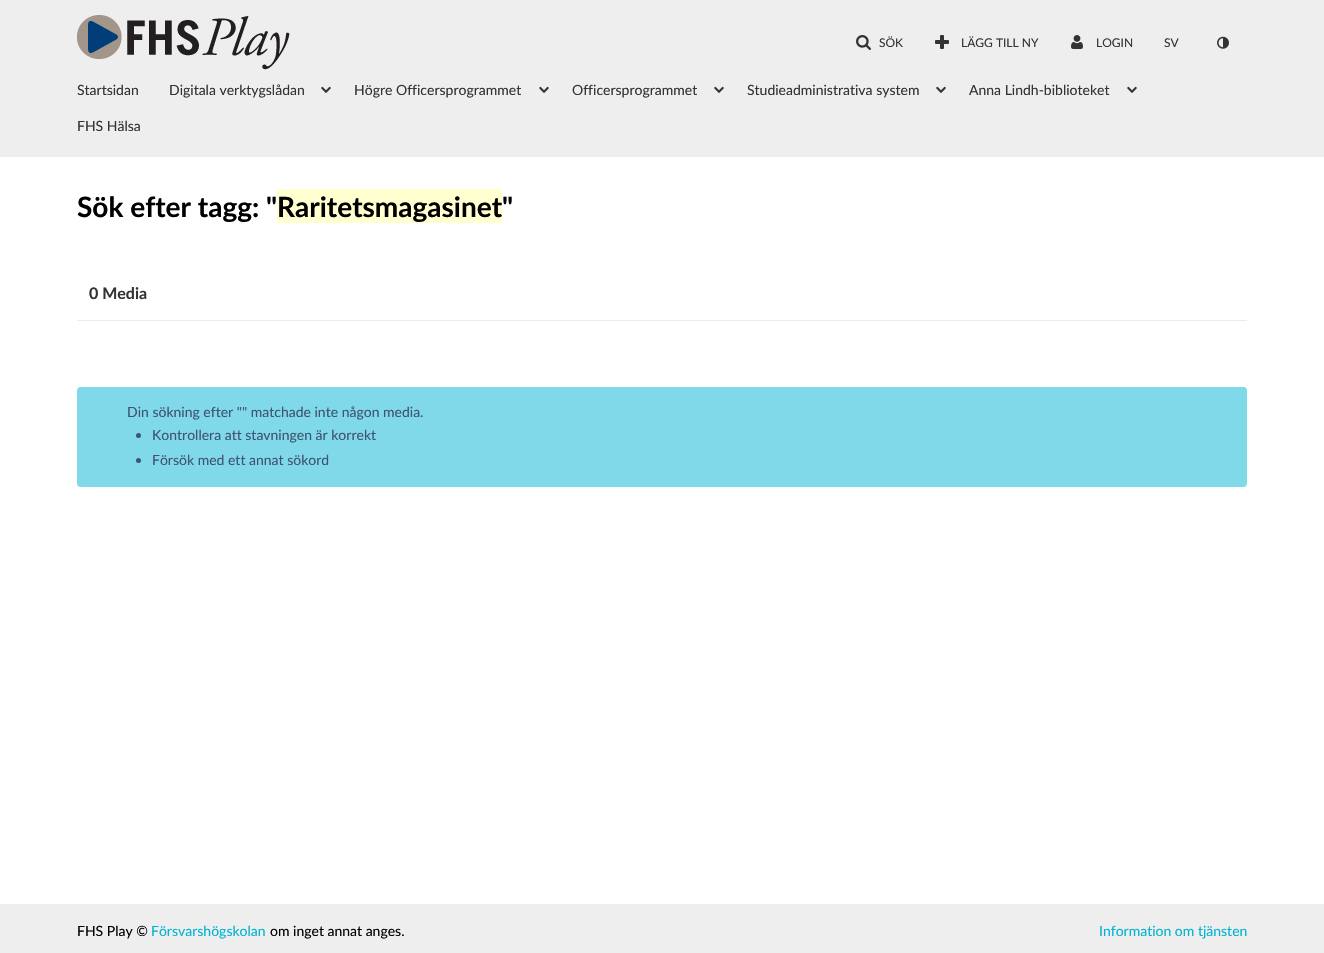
static SkFont makeFont(const char* family, int weight, float size, bool italic = false) {
  SkFontStyle style(weight, SkFontStyle::kNormal_Width,
    italic ? SkFontStyle::kItalic_Slant : SkFontStyle::kUpright_Slant);
  SkFont result(fontMgr->matchFamilyStyle(family, style), size);
  result.setSubpixel(true);
  return result;
}

static void text(SkCanvas* c, const char* s, float x, float y, const SkFont& font, SkColor color) {
  SkPaint ink(SkColor4f::FromColor(color));
  ink.setAntiAlias(true);
  c->drawString(s, x, y, font, ink);
}

static void box(SkCanvas* c, float l, float t, float r, float b, SkColor color) {
  SkPaint ink(SkColor4f::FromColor(color));
  ink.setAntiAlias(true);
  c->drawRect(SkRect::MakeLTRB(l, t, r, b), ink);
}

static void roundBox(SkCanvas* c, float l, float t, float r, float b, float radius, SkColor color) {
  SkPaint ink(SkColor4f::FromColor(color));
  ink.setAntiAlias(true);
  c->drawRoundRect(SkRect::MakeLTRB(l, t, r, b), radius, radius, ink);
}

static void picture(SkCanvas* c, const char* path, float l, float t, float r, float b) {
  auto image = SkImages::DeferredFromEncodedData(SkData::MakeFromFileName(path));
  c->drawImageRect(image, SkRect::MakeLTRB(l, t, r, b), SkSamplingOptions());
}

void draw(SkCanvas* c) {
  SkPaint paint;
  paint.setAntiAlias(true);
  c->clear(0xffffffff);
  box(c, 0, 0, 1324, 157, 0xffeeeeee);
  picture(c, "img_01.png", 77, 15, 290, 70);
  picture(c, "img_02.png", 856, 35, 871, 50);
  SkFont face1 = makeFont("Lato", 400, 12);
  text(c, "SÖK", 879, 47, face1, 0xff333333);
  picture(c, "img_03.png", 935, 35, 949, 49);
  text(c, "LÄGG TILL NY", 961, 47, face1, 0xff333333);
  picture(c, "img_04.png", 1071, 35, 1083, 49);
  text(c, "LOGIN", 1096, 47, face1, 0xff333333);
  text(c, "SV", 1164, 47, face1, 0xff333333);
  picture(c, "img_05.png", 1217, 36, 1229, 49);
  SkFont face2 = makeFont("Lato", 400, 14);
  text(c, "Startsidan", 77, 95, face2, 0xff333333);
  text(c, "Digitala verktygslådan", 169, 95, face2, 0xff333333);
  picture(c, "img_06.png", 321, 86, 331, 93);
  text(c, "Högre Officersprogrammet", 354, 95, face2, 0xff333333);
  picture(c, "img_06.png", 539, 86, 549, 93);
  text(c, "Officersprogrammet", 572, 95, face2, 0xff333333);
  picture(c, "img_06.png", 714, 86, 724, 93);
  text(c, "Studieadministrativa system", 747, 95, face2, 0xff333333);
  picture(c, "img_06.png", 936, 86, 946, 93);
  text(c, "Anna Lindh-biblioteket", 969, 95, face2, 0xff333333);
  picture(c, "img_06.png", 1127, 86, 1137, 93);
  text(c, "FHS Hälsa", 77, 131, face2, 0xff333333);
  SkFont face3 = makeFont("Lato", 700, 28);
  text(c, "Sök efter tagg: \"", 77, 217, face3, 0xff000000);
  box(c, 277, 189, 502, 223, 0xffffffcf);
  text(c, "Raritetsmagasinet\"", 277, 217, face3, 0xff000000);
  box(c, 77, 320, 1247, 321, 0xffebebeb);
  SkFont face4 = makeFont("Lato", 700, 16);
  text(c, "0 Media", 89, 299, face4, 0xff333333);
  roundBox(c, 77, 387, 1247, 487, 4, 0xff7fd9e8);
  text(c, "Din sökning efter \"\" matchade inte någon media.", 127, 417, face2, 0xff405372);
  paint.setColor(0xff405372);
  c->drawCircle(138.5f, 435.5f, 2.5f, paint);
  text(c, "Kontrollera att stavningen är korrekt", 152, 440, face2, 0xff405372);
  c->drawCircle(138.5f, 460.5f, 2.5f, paint);
  text(c, "Försök med ett annat sökord", 152, 465, face2, 0xff405372);
  box(c, 0, 904, 1324, 953, 0xffeeeeee);
  text(c, "FHS Play ©", 77, 936, face2, 0xff000000);
  text(c, "Försvarshögskolan", 151, 936, face2, 0xff00b4d1);
  text(c, "om inget annat anges.", 270, 936, face2, 0xff000000);
  text(c, "Information om tjänsten", 1099, 936, face2, 0xff00b4d1);
}
